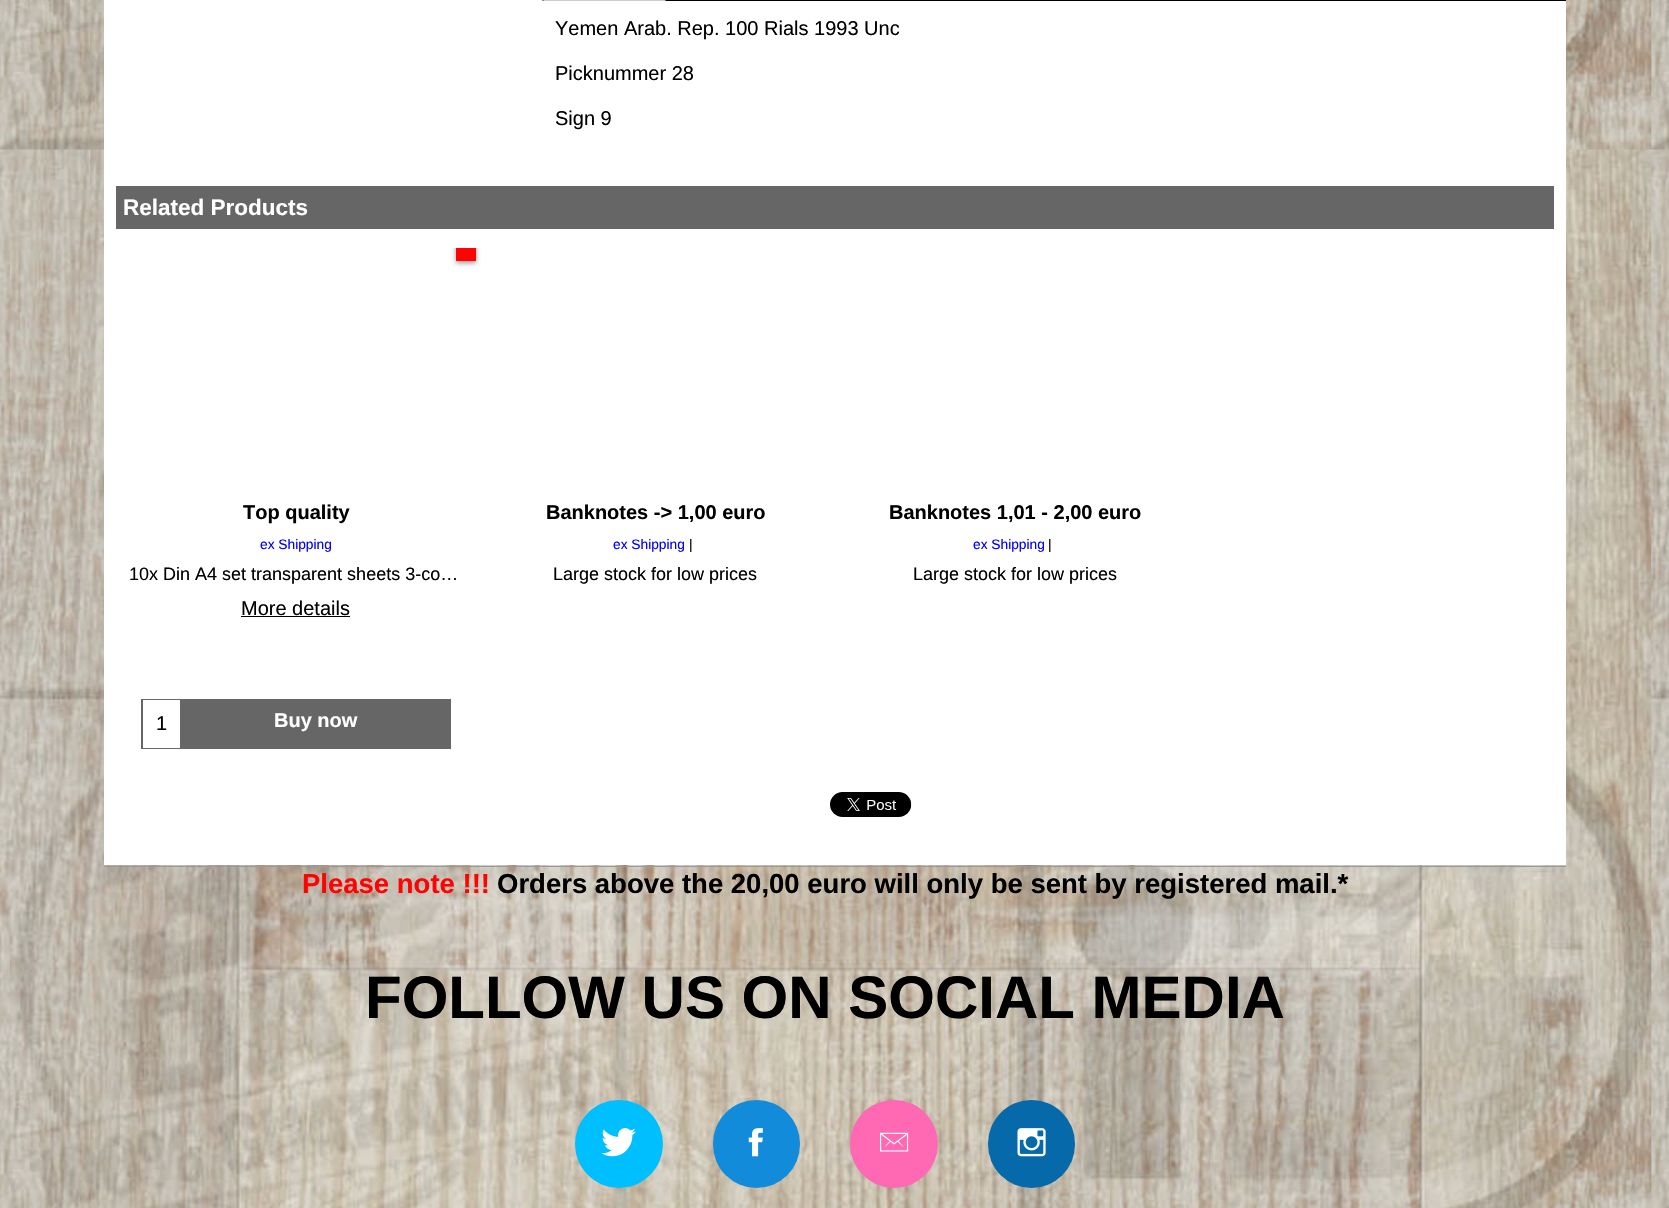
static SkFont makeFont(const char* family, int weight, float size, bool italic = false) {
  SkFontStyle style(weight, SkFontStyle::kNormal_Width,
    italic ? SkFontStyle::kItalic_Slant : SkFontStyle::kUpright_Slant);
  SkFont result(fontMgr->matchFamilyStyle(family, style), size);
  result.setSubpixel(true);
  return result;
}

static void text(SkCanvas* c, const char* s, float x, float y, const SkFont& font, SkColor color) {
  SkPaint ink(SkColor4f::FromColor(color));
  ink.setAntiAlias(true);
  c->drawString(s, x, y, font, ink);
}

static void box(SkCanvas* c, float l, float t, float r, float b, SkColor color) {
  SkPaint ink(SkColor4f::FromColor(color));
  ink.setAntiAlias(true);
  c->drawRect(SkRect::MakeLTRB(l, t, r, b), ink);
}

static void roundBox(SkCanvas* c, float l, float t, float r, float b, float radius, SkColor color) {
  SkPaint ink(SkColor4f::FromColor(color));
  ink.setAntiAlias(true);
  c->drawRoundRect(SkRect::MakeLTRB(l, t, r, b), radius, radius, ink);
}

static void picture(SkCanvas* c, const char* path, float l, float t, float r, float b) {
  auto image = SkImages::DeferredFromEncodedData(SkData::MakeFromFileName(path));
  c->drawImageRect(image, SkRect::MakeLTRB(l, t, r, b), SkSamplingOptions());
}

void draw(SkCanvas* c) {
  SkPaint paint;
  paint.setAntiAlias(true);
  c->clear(0xffffffff);
  picture(c, "img_01.png", 0, 0, 1669, 1208);
  box(c, 104, 0, 1566, 865, 0xffffffff);
  box(c, 543, 0, 666, 1, 0xffcccccc);
  paint.setColor(0xff000000);
  c->drawPath(SkPathBuilder().moveTo(666, -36).lineTo(666, 1).lineTo(665, 0).lineTo(665, -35).close().detach(), paint);
  c->drawPath(SkPathBuilder().moveTo(542.5f, 1).lineTo(542.5f, -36).lineTo(544, -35).lineTo(544, 0).close().detach(), paint);
  box(c, 666, 0, 1566, 1, 0xff000000);
  SkFont face1 = makeFont("Liberation Sans", 400, 20);
  text(c, "Yemen Arab. Rep. 100 Rials 1993 Unc", 555, 35, face1, 0xff000000);
  text(c, "Picknummer 28", 555, 80, face1, 0xff000000);
  text(c, "Sign 9", 555, 125, face1, 0xff000000);
  box(c, 116, 186, 1554, 229, 0xff666666);
  SkFont face2 = makeFont("Liberation Sans", 700, 22.5f);
  text(c, "Related Products", 123, 215, face2, 0xffffffff);
  c->save();
  c->clipRect(SkRect::MakeLTRB(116, 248, 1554, 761));
  paint.setColor(0x80323232);
  paint.setMaskFilter(SkMaskFilter::MakeBlur(kNormal_SkBlurStyle, 2.5f));
  c->drawRect(SkRect::MakeLTRB(456, 243, 476, 263), paint);
  paint.setMaskFilter(nullptr);
  c->restore();
  box(c, 456, 248, 476, 261, 0xffff0303);
  SkFont face3 = makeFont("Liberation Sans", 700, 20);
  text(c, "Top quality", 243, 519, face3, 0xff000000);
  SkFont face4 = makeFont("Liberation Sans", 400, 13.75f);
  text(c, "ex Shipping", 260, 549, face4, 0xff0000ff);
  SkFont face5 = makeFont("Liberation Sans", 400, 18);
  text(c, "10x Din A4 set transparent sheets 3-co…", 129, 580, face5, 0xff000000);
  text(c, "More details", 241, 615, face1, 0xff000000);
  box(c, 241, 616, 350, 617, 0xff000000);
  box(c, 141, 699, 451, 749, 0xff666666);
  box(c, 143, 700, 180, 748, 0xffffffff);
  text(c, "1", 156, 730, face1, 0xff000000);
  text(c, "Buy now", 274, 727, face3, 0xffffffff);
  text(c, "Banknotes -> 1,00 euro", 546, 519, face3, 0xff000000);
  text(c, "ex Shipping", 613, 549, face4, 0xff0000ff);
  text(c, "|", 689, 549, face4, 0xff000000);
  text(c, "Large stock for low prices", 553, 580, face5, 0xff000000);
  text(c, "Banknotes 1,01 - 2,00 euro", 889, 519, face3, 0xff000000);
  text(c, "ex Shipping", 973, 549, face4, 0xff0000ff);
  text(c, "|", 1048, 549, face4, 0xff000000);
  text(c, "Large stock for low prices", 913, 580, face5, 0xff000000);
  picture(c, "img_02.png", 830, 792, 912, 817);
  box(c, 104, 866, 1566, 867, 0xff999999);
  SkFont face6 = makeFont("Liberation Sans", 700, 27.5f);
  text(c, "Please note !!!", 302, 893, face6, 0xffff0303);
  text(c, "Orders above the 20,00 euro will only be sent by registered mail.*", 497, 893, face6, 0xff000000);
  SkFont face7 = makeFont("Liberation Sans", 700, 60);
  text(c, "FOLLOW US ON SOCIAL MEDIA", 365, 1018, face7, 0xff000000);
  paint.setColor(0xff00bfff);
  c->drawCircle(619, 1144, 44, paint);
  picture(c, "img_03.png", 601, 1128, 636, 1157);
  roundBox(c, 713, 1100, 800, 1188, 43.5f, 0xff128bdb);
  picture(c, "img_04.png", 748, 1128, 763, 1157);
  paint.setColor(0xffff69b4);
  c->drawCircle(894, 1144, 44, paint);
  picture(c, "img_05.png", 880, 1132, 909, 1152);
  roundBox(c, 988, 1100, 1075, 1188, 43.5f, 0xff0569aa);
  picture(c, "img_06.png", 1017, 1128, 1046, 1157);
}
